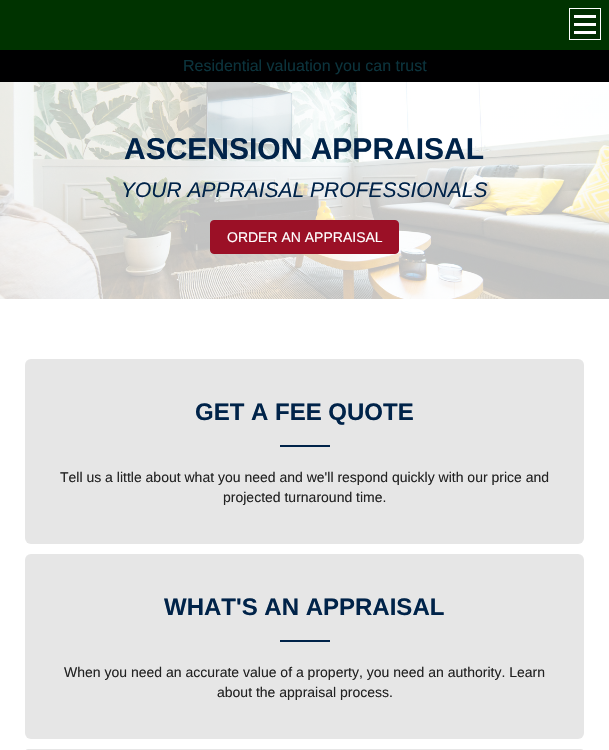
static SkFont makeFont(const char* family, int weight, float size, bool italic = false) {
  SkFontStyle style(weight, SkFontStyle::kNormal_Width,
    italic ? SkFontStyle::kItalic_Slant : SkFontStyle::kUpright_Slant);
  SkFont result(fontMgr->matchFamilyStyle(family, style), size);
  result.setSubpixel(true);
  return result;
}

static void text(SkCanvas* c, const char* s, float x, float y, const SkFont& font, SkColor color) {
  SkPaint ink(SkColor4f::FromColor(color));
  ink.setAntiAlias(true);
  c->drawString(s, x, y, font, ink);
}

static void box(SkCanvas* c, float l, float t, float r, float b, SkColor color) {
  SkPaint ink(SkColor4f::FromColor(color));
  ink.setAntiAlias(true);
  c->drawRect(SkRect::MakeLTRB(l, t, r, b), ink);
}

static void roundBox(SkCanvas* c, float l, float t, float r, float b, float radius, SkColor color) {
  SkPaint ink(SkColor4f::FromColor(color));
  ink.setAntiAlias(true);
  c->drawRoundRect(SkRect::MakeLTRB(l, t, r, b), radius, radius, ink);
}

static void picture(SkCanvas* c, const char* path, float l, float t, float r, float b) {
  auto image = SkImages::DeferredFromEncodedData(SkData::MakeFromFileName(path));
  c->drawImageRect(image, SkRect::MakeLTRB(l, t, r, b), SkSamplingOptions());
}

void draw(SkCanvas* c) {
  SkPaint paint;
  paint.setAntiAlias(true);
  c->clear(0xff000001);
  box(c, 0, 0, 609, 50, 0xff003300);
  paint.setColor(0xff002e00);
  c->drawRect(SkRect::MakeLTRB(569.5f, 8.5f, 600.5f, 39.5f), paint);
  paint.setStyle(SkPaint::kStroke_Style);
  paint.setStrokeWidth(1);
  paint.setColor(0xffffffff);
  c->drawRect(SkRect::MakeLTRB(569.5f, 8.5f, 600.5f, 39.5f), paint);
  box(c, 574, 23, 596, 26, 0xffffffff);
  box(c, 574, 15, 596, 18, 0xffffffff);
  box(c, 574, 31, 596, 34, 0xffffffff);
  SkFont face1 = makeFont("Liberation Sans", 400, 16);
  text(c, "Residential valuation you can trust", 183, 71, face1, 0xff0b333c);
  box(c, 0, 299, 609, 750, 0xffffffff);
  picture(c, "img_01.png", 0, 82, 609, 299);
  SkFont face2 = makeFont("Liberation Sans", 700, 30);
  text(c, "ASCENSION APPRAISAL", 124, 159, face2, 0xff002349);
  SkFont face3 = makeFont("Liberation Sans", 400, 21, true);
  text(c, "YOUR APPRAISAL PROFESSIONALS", 121, 197, face3, 0xff002349);
  paint.setStyle(SkPaint::kFill_Style);
  paint.setColor(0xff9b1026);
  c->drawRoundRect(SkRect::MakeLTRB(210.5f, 220.5f, 398.5f, 253.5f), 3.5f, 3.5f, paint);
  paint.setStyle(SkPaint::kStroke_Style);
  c->drawRoundRect(SkRect::MakeLTRB(210.5f, 220.5f, 398.5f, 253.5f), 3.5f, 3.5f, paint);
  SkFont face4 = makeFont("Liberation Sans", 400, 14);
  text(c, "ORDER AN APPRAISAL", 227, 242, face4, 0xffffffff);
  roundBox(c, 25, 359, 584, 544, 6, 0xffe6e6e6);
  SkFont face5 = makeFont("Liberation Sans", 700, 24);
  text(c, "GET A FEE QUOTE", 195, 420, face5, 0xff002349);
  box(c, 280, 445, 330, 447, 0xff002349);
  text(c, "Tell us a little about what you need and we'll respond quickly with our price and", 60, 482, face4, 0xff222222);
  text(c, "projected turnaround time.", 223, 502, face4, 0xff222222);
  roundBox(c, 25, 554, 584, 739, 6, 0xffe6e6e6);
  text(c, "WHAT'S AN APPRAISAL", 164, 615, face5, 0xff002349);
  box(c, 280, 640, 330, 642, 0xff002349);
  text(c, "When you need an accurate value of a property, you need an authority. Learn", 64, 677, face4, 0xff222222);
  text(c, "about the appraisal process.", 217, 697, face4, 0xff222222);
  roundBox(c, 25, 749, 584, 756, 6, 0xffe6e6e6);
}
